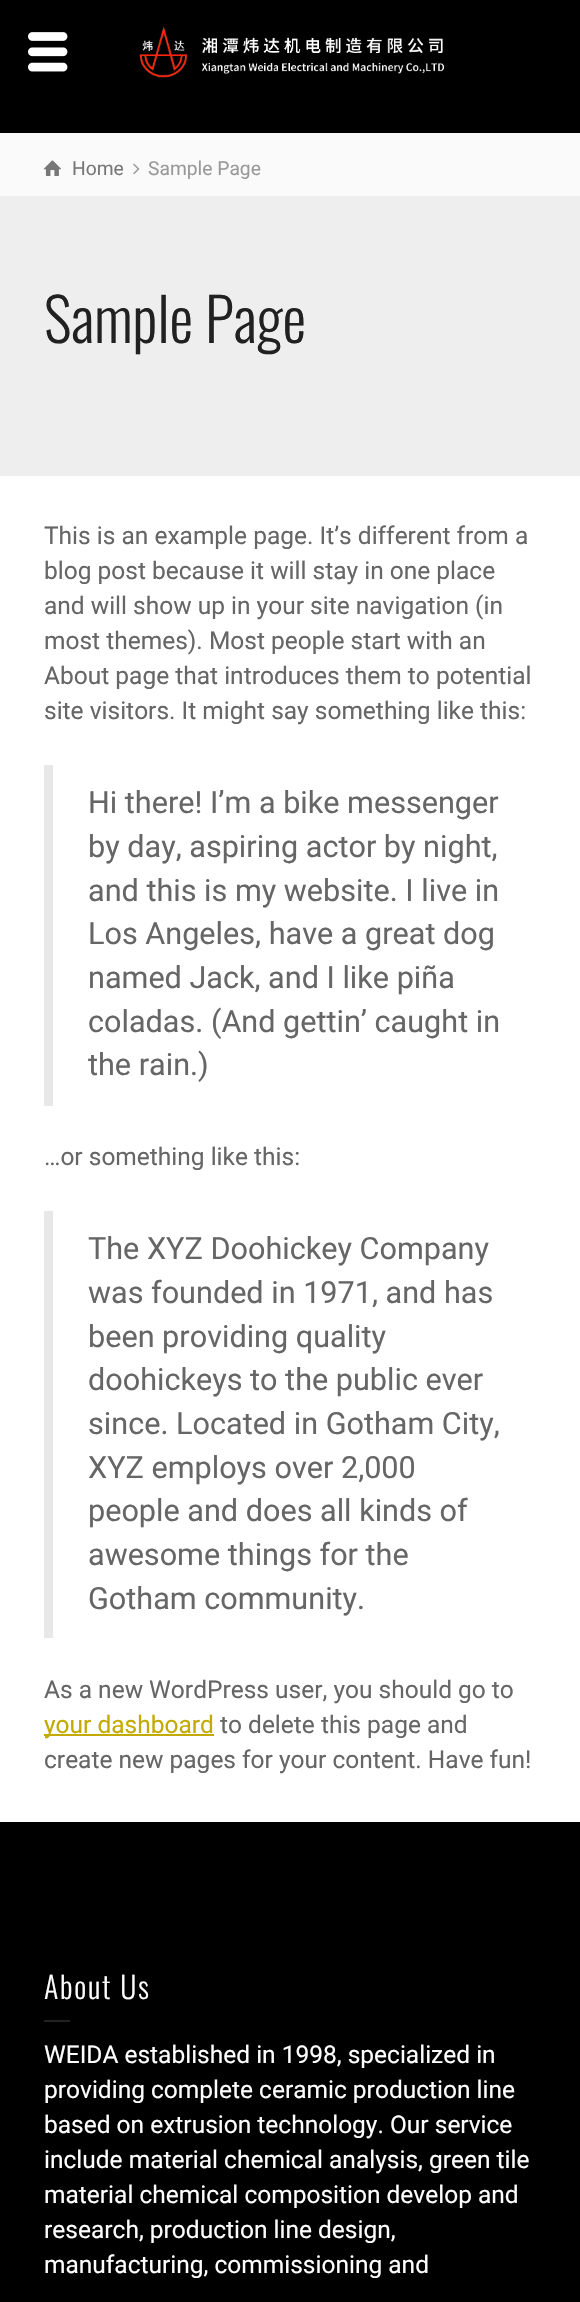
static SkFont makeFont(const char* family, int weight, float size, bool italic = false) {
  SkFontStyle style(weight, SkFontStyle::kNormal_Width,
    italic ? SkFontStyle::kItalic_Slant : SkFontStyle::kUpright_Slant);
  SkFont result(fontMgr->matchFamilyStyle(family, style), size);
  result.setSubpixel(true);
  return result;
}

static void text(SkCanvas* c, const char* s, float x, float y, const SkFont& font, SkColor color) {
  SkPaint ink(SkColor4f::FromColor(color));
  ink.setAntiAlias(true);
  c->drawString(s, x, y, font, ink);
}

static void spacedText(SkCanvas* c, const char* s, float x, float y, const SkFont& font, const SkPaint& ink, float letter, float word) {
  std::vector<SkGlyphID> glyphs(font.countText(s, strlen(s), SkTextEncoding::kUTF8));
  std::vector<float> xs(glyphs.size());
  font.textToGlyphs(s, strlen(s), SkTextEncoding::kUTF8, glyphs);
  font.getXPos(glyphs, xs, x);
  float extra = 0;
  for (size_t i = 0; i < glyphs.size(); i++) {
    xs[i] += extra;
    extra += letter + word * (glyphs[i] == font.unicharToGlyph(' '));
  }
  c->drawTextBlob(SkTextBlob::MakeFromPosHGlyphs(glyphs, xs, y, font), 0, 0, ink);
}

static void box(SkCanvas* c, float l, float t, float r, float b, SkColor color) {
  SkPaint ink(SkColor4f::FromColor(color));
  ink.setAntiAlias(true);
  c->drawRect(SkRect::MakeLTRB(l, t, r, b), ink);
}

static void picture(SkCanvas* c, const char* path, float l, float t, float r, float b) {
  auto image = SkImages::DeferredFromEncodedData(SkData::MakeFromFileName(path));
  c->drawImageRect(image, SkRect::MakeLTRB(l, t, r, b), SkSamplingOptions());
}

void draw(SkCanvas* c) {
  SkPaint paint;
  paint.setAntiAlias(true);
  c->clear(0xff000000);
  picture(c, "img_01.png", 28, 32, 68, 72);
  picture(c, "img_02.png", 139, 26, 445, 78);
  box(c, 0, 196, 580, 476, 0xffeeeeee);
  box(c, 0, 133, 580, 196, 0xfffafafa);
  picture(c, "img_03.png", 43, 160, 61, 176);
  SkFont face1 = makeFont("Roboto", 400, 19.25f);
  text(c, "Home", 72, 175, face1, 0xff777777);
  picture(c, "img_04.png", 133, 163, 140, 175);
  text(c, "Sample Page", 148, 175, face1, 0xff999999);
  SkFont face2 = makeFont("Oswald", 300, 59.5f);
  text(c, "Sample Page", 44, 343, face2, 0xff212121);
  box(c, 0, 476, 580, 1822, 0xffffffff);
  SkFont face3 = makeFont("Roboto", 400, 24.5f);
  text(c, "This is an example page. It’s different from a", 44, 544, face3, 0xff666666);
  text(c, "blog post because it will stay in one place", 44, 579, face3, 0xff666666);
  text(c, "and will show up in your site navigation (in", 44, 614, face3, 0xff666666);
  text(c, "most themes). Most people start with an", 44, 649, face3, 0xff666666);
  text(c, "About page that introduces them to potential", 44, 684, face3, 0xff666666);
  text(c, "site visitors. It might say something like this:", 44, 719, face3, 0xff666666);
  box(c, 44, 765, 53, 1106, 0xffe8e8e8);
  SkFont face4 = makeFont("Roboto", 400, 30.6f);
  text(c, "Hi there! I’m a bike messenger", 88, 813, face4, 0xff666666);
  text(c, "by day, aspiring actor by night,", 88, 857, face4, 0xff666666);
  text(c, "and this is my website. I live in", 88, 901, face4, 0xff666666);
  text(c, "Los Angeles, have a great dog", 88, 944, face4, 0xff666666);
  text(c, "named Jack, and I like piña", 88, 988, face4, 0xff666666);
  text(c, "coladas. (And gettin’ caught in", 88, 1032, face4, 0xff666666);
  text(c, "the rain.)", 88, 1075, face4, 0xff666666);
  text(c, "…or something like this:", 44, 1165, face3, 0xff666666);
  box(c, 44, 1211, 53, 1638, 0xffe8e8e8);
  text(c, "The XYZ Doohickey Company", 88, 1259, face4, 0xff666666);
  text(c, "was founded in 1971, and has", 88, 1303, face4, 0xff666666);
  text(c, "been providing quality", 88, 1347, face4, 0xff666666);
  text(c, "doohickeys to the public ever", 88, 1390, face4, 0xff666666);
  text(c, "since. Located in Gotham City,", 88, 1434, face4, 0xff666666);
  text(c, "XYZ employs over 2,000", 88, 1478, face4, 0xff666666);
  text(c, "people and does all kinds of", 88, 1521, face4, 0xff666666);
  text(c, "awesome things for the", 88, 1565, face4, 0xff666666);
  text(c, "Gotham community.", 88, 1609, face4, 0xff666666);
  text(c, "As a new WordPress user, you should go to", 44, 1698, face3, 0xff666666);
  box(c, 44, 1734, 214, 1736, 0xffc3aa00);
  text(c, "your dashboard", 44, 1733, face3, 0xffc3aa00);
  text(c, "to delete this page and", 220, 1733, face3, 0xff666666);
  text(c, "create new pages for your content. Have fun!", 44, 1768, face3, 0xff666666);
  SkFont face5 = makeFont("Oswald", 300, 30);
  paint.setColor(0xffffffff);
  spacedText(c, "About Us", 44, 1999, face5, paint, 1.75f, 0);
  box(c, 44, 2020, 70, 2022, 0xff222222);
  text(c, "WEIDA established in 1998, specialized in", 44, 2063, face3, 0xffffffff);
  text(c, "providing complete ceramic production line", 44, 2098, face3, 0xffffffff);
  text(c, "based on extrusion technology. Our service", 44, 2133, face3, 0xffffffff);
  text(c, "include material chemical analysis, green tile", 44, 2168, face3, 0xffffffff);
  text(c, "material chemical composition develop and", 44, 2203, face3, 0xffffffff);
  text(c, "research, production line design,", 44, 2238, face3, 0xffffffff);
  text(c, "manufacturing, commissioning and", 44, 2273, face3, 0xffffffff);
}
